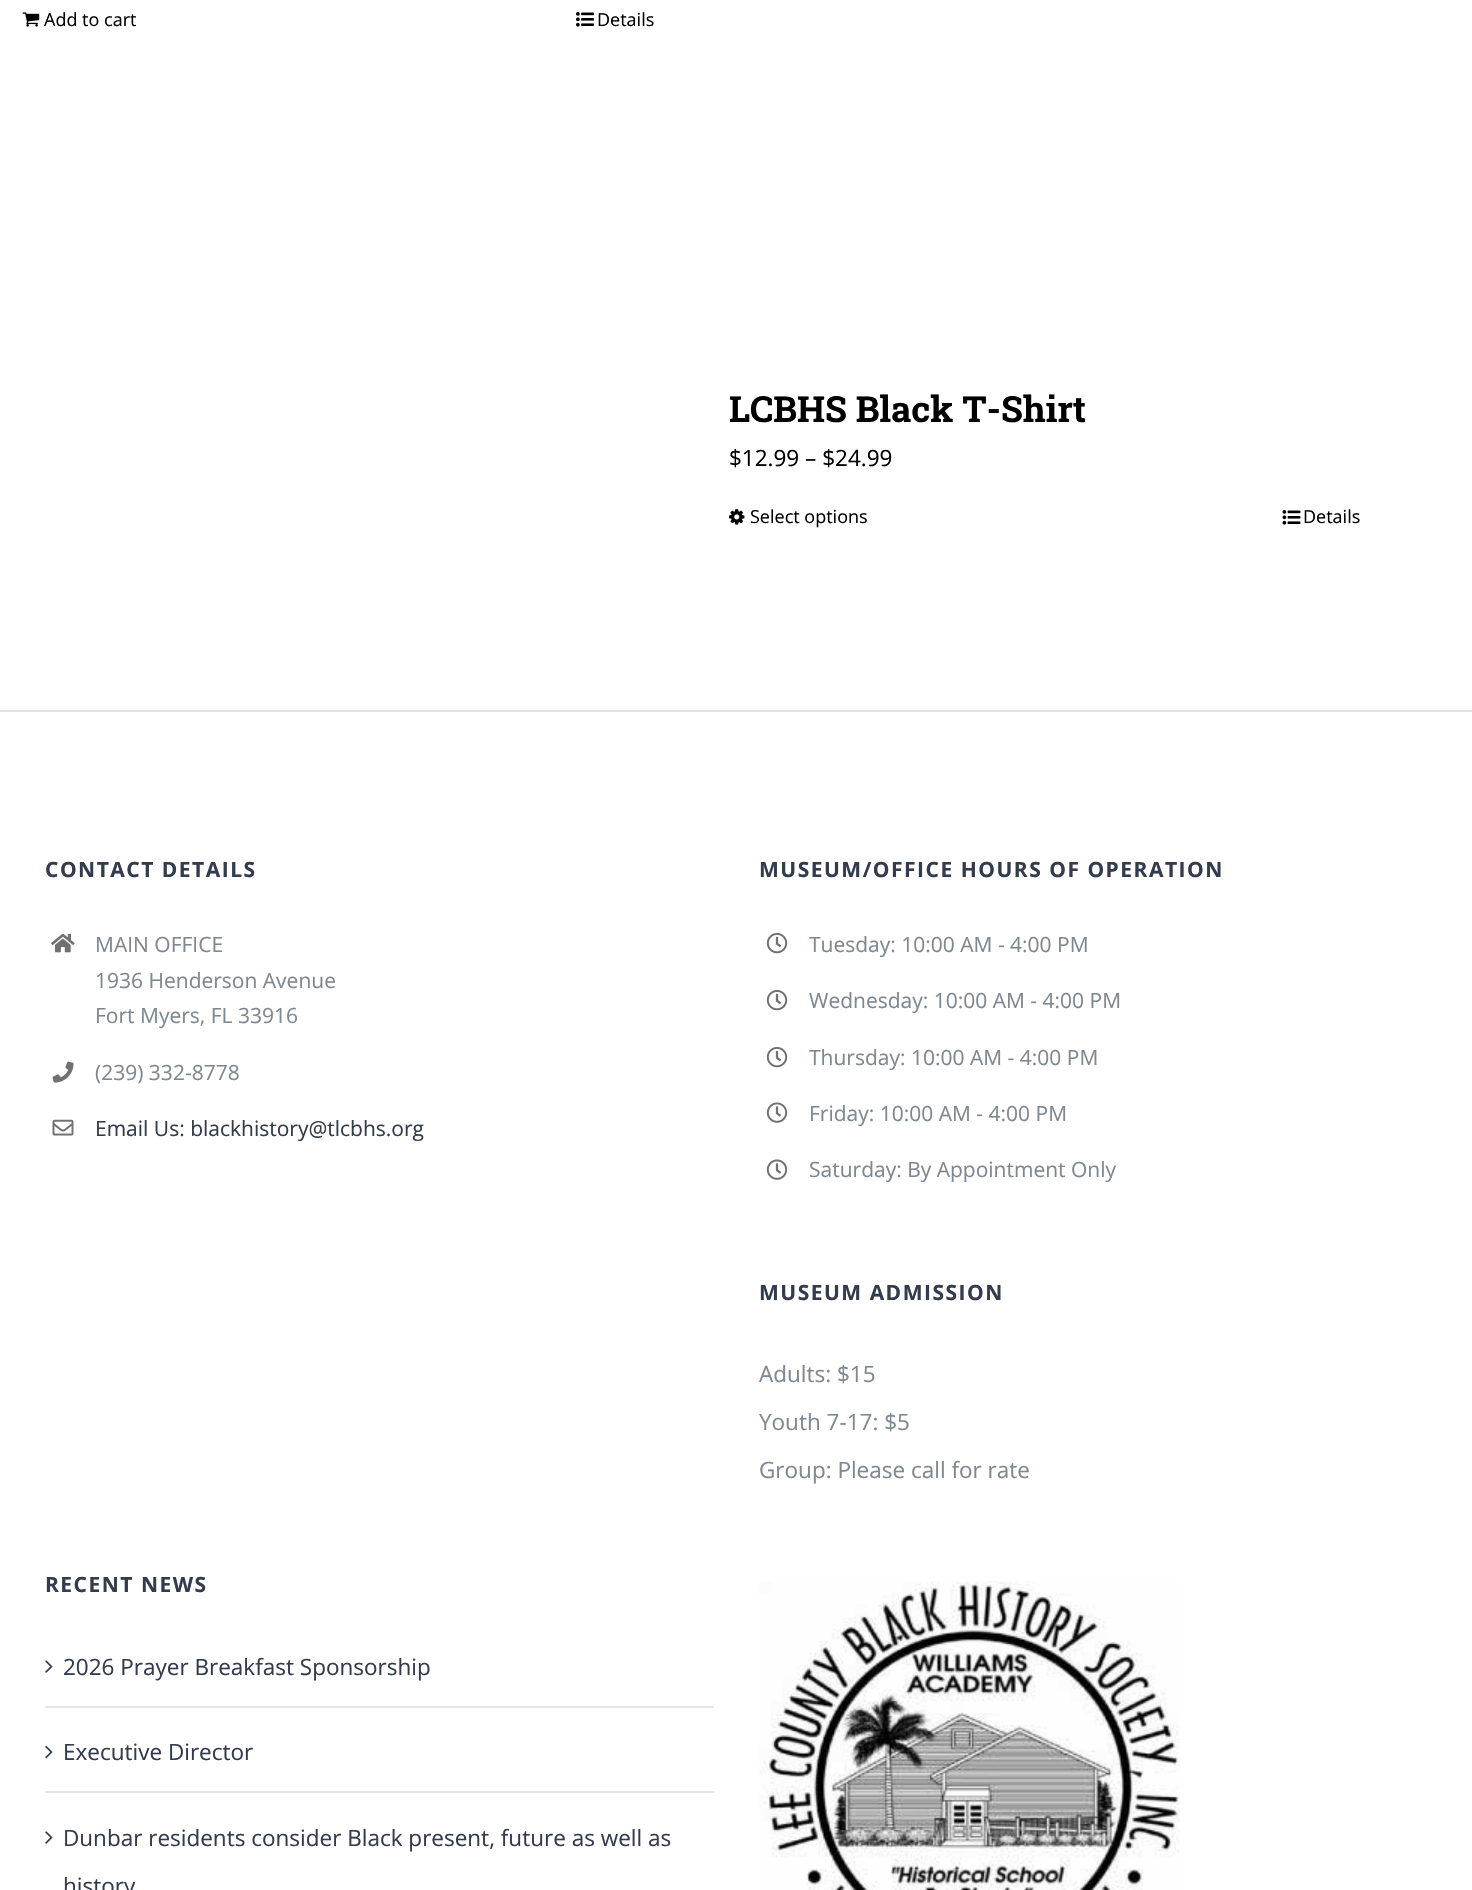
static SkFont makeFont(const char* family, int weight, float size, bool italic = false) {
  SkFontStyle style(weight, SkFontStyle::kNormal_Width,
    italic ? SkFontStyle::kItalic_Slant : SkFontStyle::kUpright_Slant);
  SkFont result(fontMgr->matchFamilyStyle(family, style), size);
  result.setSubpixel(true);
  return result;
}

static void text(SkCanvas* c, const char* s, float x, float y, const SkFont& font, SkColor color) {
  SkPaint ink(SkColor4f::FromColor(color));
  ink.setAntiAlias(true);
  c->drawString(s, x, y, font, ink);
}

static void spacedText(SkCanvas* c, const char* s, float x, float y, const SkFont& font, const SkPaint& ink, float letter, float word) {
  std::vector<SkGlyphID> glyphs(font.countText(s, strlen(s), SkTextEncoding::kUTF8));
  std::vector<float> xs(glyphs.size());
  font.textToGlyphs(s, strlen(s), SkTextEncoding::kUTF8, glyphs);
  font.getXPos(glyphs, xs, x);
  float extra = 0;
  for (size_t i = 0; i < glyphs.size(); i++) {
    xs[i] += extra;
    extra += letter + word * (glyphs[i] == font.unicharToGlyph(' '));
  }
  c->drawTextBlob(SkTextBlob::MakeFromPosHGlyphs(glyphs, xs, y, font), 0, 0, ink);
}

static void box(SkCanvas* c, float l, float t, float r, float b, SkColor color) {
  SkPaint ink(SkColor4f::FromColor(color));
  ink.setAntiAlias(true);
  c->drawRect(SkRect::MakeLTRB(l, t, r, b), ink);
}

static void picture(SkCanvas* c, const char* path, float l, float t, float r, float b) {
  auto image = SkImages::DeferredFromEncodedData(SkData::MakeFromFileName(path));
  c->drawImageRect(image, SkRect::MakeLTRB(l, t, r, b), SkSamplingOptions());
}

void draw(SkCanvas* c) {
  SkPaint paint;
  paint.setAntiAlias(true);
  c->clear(0xffffffff);
  picture(c, "img_01.png", 22, 12, 40, 27);
  SkFont face1 = makeFont("Open Sans", 400, 18);
  text(c, "Add to cart", 44, 26, face1, 0xff000000);
  picture(c, "img_02.png", 576, 12, 594, 27);
  text(c, "Details", 597, 26, face1, 0xff000000);
  SkFont face2 = makeFont("Roboto Slab", 700, 36);
  text(c, "LCBHS Black T-Shirt", 729, 422, face2, 0xff000000);
  SkFont face3 = makeFont("Open Sans", 400, 22.5f);
  text(c, "$12.99 – $24.99", 729, 466, face3, 0xff000000);
  picture(c, "img_03.png", 729, 509, 745, 525);
  text(c, "Select options", 750, 523, face1, 0xff000000);
  picture(c, "img_04.png", 1282, 510, 1301, 525);
  text(c, "Details", 1303, 523, face1, 0xff000000);
  box(c, 0, 710, 1472, 712, 0xffe7e4e2);
  SkFont face4 = makeFont("Open Sans", 700, 21);
  paint.setColor(0xff333c4e);
  spacedText(c, "CONTACT DETAILS", 45, 877, face4, paint, 1.5f, 0);
  picture(c, "img_05.png", 51, 933, 75, 953);
  SkFont face5 = makeFont("Open Sans", 400, 21);
  text(c, "MAIN OFFICE", 95, 952, face5, 0xff7e8890);
  text(c, "1936 Henderson Avenue", 95, 988, face5, 0xff7e8890);
  text(c, "Fort Myers, FL 33916", 95, 1023, face5, 0xff7e8890);
  picture(c, "img_06.png", 52, 1061, 74, 1083);
  text(c, "(239) 332-8778", 95, 1080, face5, 0xff7e8890);
  picture(c, "img_07.png", 52, 1119, 74, 1136);
  text(c, "Email Us: blackhistory@tlcbhs.org", 95, 1136, face5, 0xff333c4e);
  spacedText(c, "MUSEUM/OFFICE HOURS OF OPERATION", 759, 877, face4, paint, 1.5f, 0);
  picture(c, "img_08.png", 766, 933, 788, 954);
  text(c, "Tuesday: 10:00 AM - 4:00 PM", 809, 952, face5, 0xff7e8890);
  picture(c, "img_08.png", 766, 990, 788, 1011);
  text(c, "Wednesday: 10:00 AM - 4:00 PM", 809, 1008, face5, 0xff7e8890);
  picture(c, "img_08.png", 766, 1047, 788, 1068);
  text(c, "Thursday: 10:00 AM - 4:00 PM", 809, 1065, face5, 0xff7e8890);
  picture(c, "img_09.png", 766, 1102, 788, 1123);
  text(c, "Friday: 10:00 AM - 4:00 PM", 809, 1121, face5, 0xff7e8890);
  picture(c, "img_09.png", 766, 1159, 788, 1180);
  text(c, "Saturday: By Appointment Only", 809, 1177, face5, 0xff7e8890);
  spacedText(c, "MUSEUM ADMISSION", 759, 1300, face4, paint, 1.5f, 0);
  text(c, "Adults: $15", 759, 1382, face3, 0xff7e8890);
  text(c, "Youth 7-17: $5", 759, 1430, face3, 0xff7e8890);
  text(c, "Group: Please call for rate", 759, 1478, face3, 0xff7e8890);
  spacedText(c, "RECENT NEWS", 45, 1592, face4, paint, 1.5f, 0);
  box(c, 45, 1706, 714, 1708, 0xffe7e4e2);
  picture(c, "img_10.png", 45, 1660, 53, 1673);
  text(c, "2026 Prayer Breakfast Sponsorship", 63, 1675, face3, 0xff333c4e);
  box(c, 45, 1791, 714, 1793, 0xffe7e4e2);
  picture(c, "img_11.png", 45, 1745, 53, 1759);
  text(c, "Executive Director", 63, 1760, face3, 0xff333c4e);
  picture(c, "img_10.png", 45, 1831, 53, 1844);
  text(c, "Dunbar residents consider Black present, future as well as", 63, 1846, face3, 0xff333c4e);
  text(c, "history", 63, 1894, face3, 0xff333c4e);
  picture(c, "img_12.png", 759, 1581, 1180, 1890);
}
